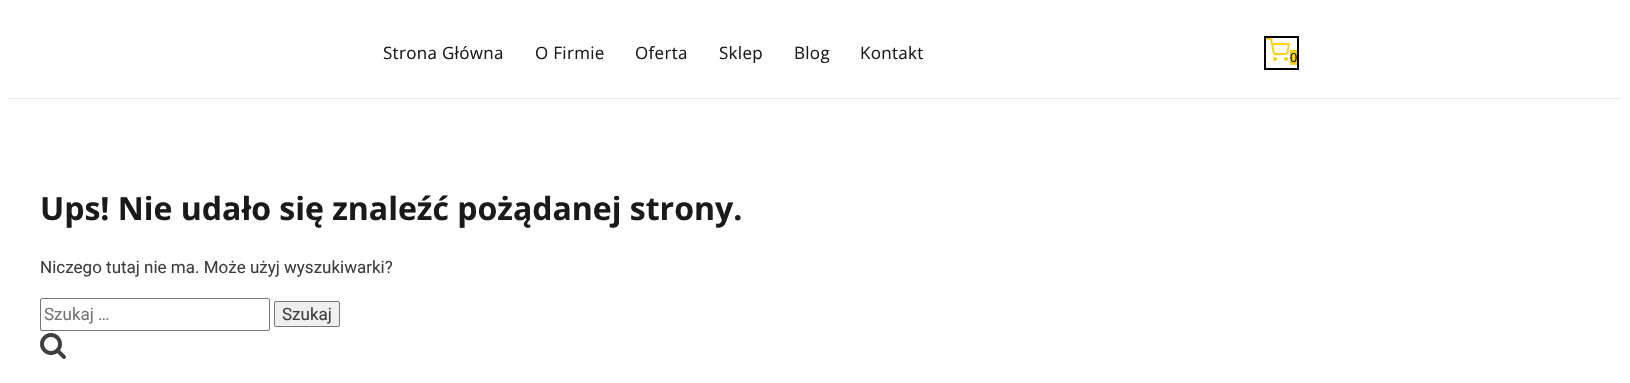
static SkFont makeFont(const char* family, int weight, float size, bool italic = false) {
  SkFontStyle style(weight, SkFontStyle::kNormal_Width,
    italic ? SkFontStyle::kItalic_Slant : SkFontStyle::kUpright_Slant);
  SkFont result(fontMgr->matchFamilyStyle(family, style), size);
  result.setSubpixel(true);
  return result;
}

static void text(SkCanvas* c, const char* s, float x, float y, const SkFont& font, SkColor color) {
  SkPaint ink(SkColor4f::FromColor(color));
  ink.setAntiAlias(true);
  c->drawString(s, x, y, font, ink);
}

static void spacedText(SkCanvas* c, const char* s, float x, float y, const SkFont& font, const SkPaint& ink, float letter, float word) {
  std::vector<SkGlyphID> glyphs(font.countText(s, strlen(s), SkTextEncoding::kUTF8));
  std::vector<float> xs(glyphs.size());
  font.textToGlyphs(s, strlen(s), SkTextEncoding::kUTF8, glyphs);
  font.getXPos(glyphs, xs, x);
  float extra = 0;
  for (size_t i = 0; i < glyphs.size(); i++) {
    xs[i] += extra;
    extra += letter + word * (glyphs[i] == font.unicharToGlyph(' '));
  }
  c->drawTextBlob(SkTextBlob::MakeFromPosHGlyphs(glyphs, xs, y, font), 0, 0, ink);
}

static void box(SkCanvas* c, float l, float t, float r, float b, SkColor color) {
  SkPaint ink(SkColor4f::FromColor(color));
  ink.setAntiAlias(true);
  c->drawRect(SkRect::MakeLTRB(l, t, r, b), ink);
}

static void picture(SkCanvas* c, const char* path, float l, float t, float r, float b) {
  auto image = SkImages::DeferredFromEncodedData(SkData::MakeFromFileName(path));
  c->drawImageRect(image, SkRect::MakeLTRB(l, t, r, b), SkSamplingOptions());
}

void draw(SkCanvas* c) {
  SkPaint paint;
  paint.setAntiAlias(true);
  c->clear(0xffffffff);
  box(c, 8, 98, 1622, 99, 0xffececec);
  SkFont face1 = makeFont("Open Sans", 400, 17);
  paint.setColor(0xff181a1c);
  spacedText(c, "Strona Główna", 383, 59, face1, paint, 0.3f, 0);
  spacedText(c, "O Firmie", 535, 59, face1, paint, 0.3f, 0);
  spacedText(c, "Oferta", 635, 59, face1, paint, 0.3f, 0);
  spacedText(c, "Sklep", 719, 59, face1, paint, 0.3f, 0);
  spacedText(c, "Blog", 794, 59, face1, paint, 0.3f, 0);
  spacedText(c, "Kontakt", 860, 59, face1, paint, 0.3f, 0);
  paint.setStyle(SkPaint::kStroke_Style);
  paint.setStrokeWidth(2);
  paint.setColor(0xff000000);
  c->drawRect(SkRect::MakeLTRB(1265, 37, 1298, 69), paint);
  picture(c, "img_01.png", 1266, 38, 1290, 61);
  box(c, 1290, 50, 1297, 65, 0xffffce1b);
  SkFont face2 = makeFont("Liberation Sans", 400, 13);
  text(c, "0", 1290, 62, face2, 0xff181a1c);
  SkFont face3 = makeFont("Open Sans", 700, 32);
  text(c, "Ups! Nie udało się znaleźć pożądanej strony.", 40, 220, face3, 0xff181a1c);
  SkFont face4 = makeFont("Roboto", 400, 17);
  text(c, "Niczego tutaj nie ma. Może użyj wyszukiwarki?", 40, 273, face4, 0xff3f3f3f);
  paint.setStrokeWidth(1);
  paint.setColor(0xff767676);
  c->drawRoundRect(SkRect::MakeLTRB(40.5f, 298.5f, 269.5f, 330.5f), 1.5f, 1.5f, paint);
  text(c, "Szukaj …", 44, 320, face4, 0xff757575);
  paint.setStyle(SkPaint::kFill_Style);
  paint.setColor(0xffefefef);
  c->drawRoundRect(SkRect::MakeLTRB(274.5f, 301.5f, 339.5f, 326.5f), 1.5f, 1.5f, paint);
  paint.setStyle(SkPaint::kStroke_Style);
  paint.setColor(0xff767676);
  c->drawRoundRect(SkRect::MakeLTRB(274.5f, 301.5f, 339.5f, 326.5f), 1.5f, 1.5f, paint);
  text(c, "Szukaj", 282, 320, face4, 0xff3f3f3f);
  picture(c, "img_02.png", 40, 333, 66, 359);
}
